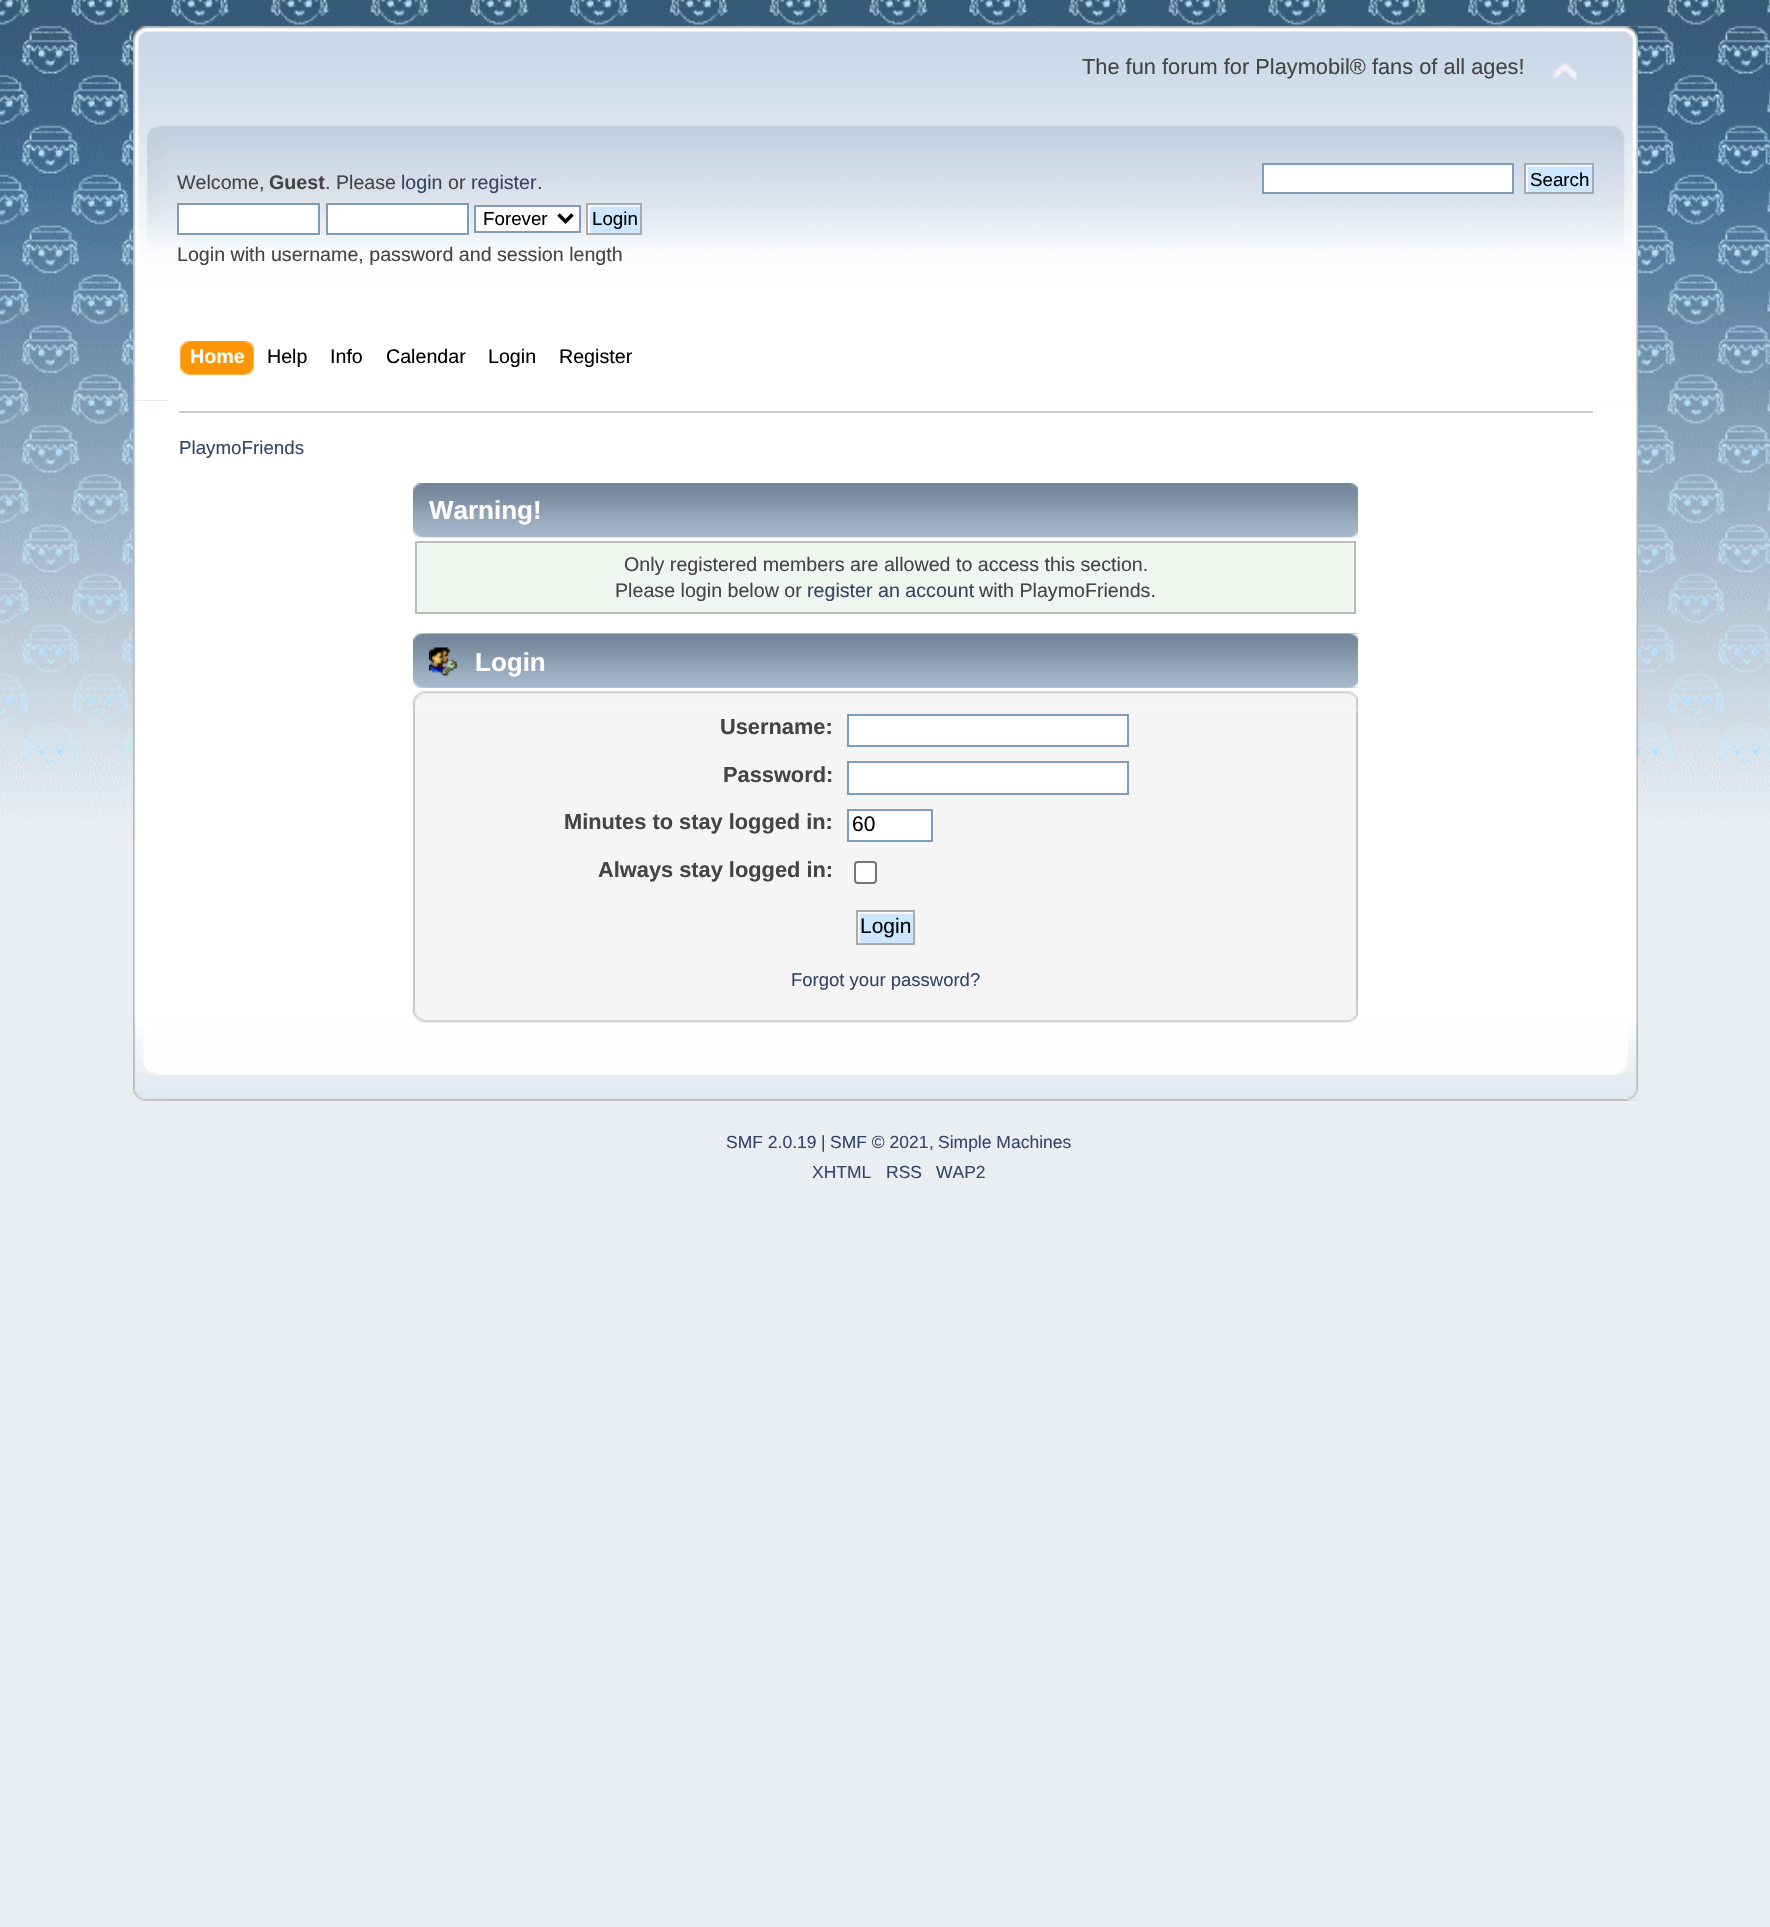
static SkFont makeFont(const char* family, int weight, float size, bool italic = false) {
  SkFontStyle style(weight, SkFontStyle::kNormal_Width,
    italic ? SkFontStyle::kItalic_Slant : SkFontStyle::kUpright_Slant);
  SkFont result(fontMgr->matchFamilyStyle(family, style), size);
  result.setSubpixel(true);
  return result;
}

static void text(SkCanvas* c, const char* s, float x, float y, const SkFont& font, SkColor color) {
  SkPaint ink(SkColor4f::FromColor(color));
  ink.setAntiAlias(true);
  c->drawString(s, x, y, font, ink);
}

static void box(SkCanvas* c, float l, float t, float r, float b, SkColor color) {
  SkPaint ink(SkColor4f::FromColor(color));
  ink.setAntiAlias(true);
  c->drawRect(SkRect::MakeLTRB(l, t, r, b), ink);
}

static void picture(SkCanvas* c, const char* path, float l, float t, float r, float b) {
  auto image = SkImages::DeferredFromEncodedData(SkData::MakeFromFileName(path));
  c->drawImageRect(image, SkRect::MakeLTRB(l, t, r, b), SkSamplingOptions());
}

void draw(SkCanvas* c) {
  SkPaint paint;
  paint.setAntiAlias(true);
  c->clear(0xffe9eef2);
  picture(c, "img_01.png", 0, 0, 1770, 835);
  picture(c, "img_02.png", 133, 26, 1638, 401);
  picture(c, "img_03.png", 168, 26, 1638, 401);
  SkFont face1 = makeFont("Liberation Sans", 400, 21.8f);
  text(c, "The fun forum for Playmobil® fans of all ages!", 1082, 74, face1, 0xff444444);
  picture(c, "img_04.png", 1552, 62, 1578, 82);
  SkFont face2 = makeFont("Liberation Sans", 400, 19.65f);
  text(c, "Welcome,", 177, 189, face2, 0xff444444);
  SkFont face3 = makeFont("Liberation Sans", 700, 19.65f);
  text(c, "Guest", 269, 189, face3, 0xff444444);
  text(c, ". Please", 325, 189, face2, 0xff444444);
  text(c, "login", 401, 189, face2, 0xff334466);
  text(c, "or", 448, 189, face2, 0xff444444);
  text(c, "register", 471, 189, face2, 0xff334466);
  text(c, ".", 537, 189, face2, 0xff444444);
  paint.setColor(0xffffffff);
  c->drawRect(SkRect::MakeLTRB(178, 204, 319, 234), paint);
  paint.setStyle(SkPaint::kStroke_Style);
  paint.setStrokeWidth(2);
  paint.setColor(0xff7f9db9);
  c->drawRect(SkRect::MakeLTRB(178, 204, 319, 234), paint);
  paint.setStyle(SkPaint::kFill_Style);
  paint.setColor(0xffffffff);
  c->drawRect(SkRect::MakeLTRB(327, 204, 468, 234), paint);
  paint.setStyle(SkPaint::kStroke_Style);
  paint.setColor(0xff7f9db9);
  c->drawRect(SkRect::MakeLTRB(327, 204, 468, 234), paint);
  paint.setStyle(SkPaint::kFill_Style);
  paint.setColor(0xffffffff);
  c->drawRect(SkRect::MakeLTRB(475, 206, 580, 232), paint);
  paint.setStyle(SkPaint::kStroke_Style);
  paint.setColor(0xff7f9db9);
  c->drawRect(SkRect::MakeLTRB(475, 206, 580, 232), paint);
  paint.setStrokeWidth(3.5f);
  paint.setColor(0xff000000);
  c->drawPath(SkPathBuilder().moveTo(558.5f, 214.5f).lineTo(565.5f, 221.5f).lineTo(572.5f, 214.5f).detach(), paint);
  SkFont face4 = makeFont("Liberation Sans", 400, 18.75f);
  text(c, "Forever", 483, 225, face4, 0xff000000);
  picture(c, "img_05.png", 588, 204, 643, 235);
  paint.setStrokeWidth(2);
  paint.setColor(0xffaaaaaa);
  c->drawRect(SkRect::MakeLTRB(587, 204, 641, 234), paint);
  text(c, "Login", 592, 225, face4, 0xff000000);
  text(c, "Login with username, password and session length", 177, 261, face2, 0xff444444);
  paint.setStyle(SkPaint::kFill_Style);
  paint.setColor(0xffffffff);
  c->drawRect(SkRect::MakeLTRB(1263, 164, 1513, 193), paint);
  paint.setStyle(SkPaint::kStroke_Style);
  paint.setColor(0xff7f9db9);
  c->drawRect(SkRect::MakeLTRB(1263, 164, 1513, 193), paint);
  picture(c, "img_06.png", 1526, 164, 1595, 195);
  paint.setColor(0xffaaaaaa);
  c->drawRect(SkRect::MakeLTRB(1525, 164, 1593, 193), paint);
  text(c, "Search", 1530, 186, face4, 0xff000000);
  picture(c, "img_07.png", 189, 341, 254, 375);
  picture(c, "img_08.png", 180, 341, 245, 375);
  text(c, "Home", 190, 363, face3, 0xffffffff);
  text(c, "Help", 267, 363, face2, 0xff000000);
  text(c, "Info", 330, 363, face2, 0xff000000);
  text(c, "Calendar", 386, 363, face2, 0xff000000);
  text(c, "Login", 488, 363, face2, 0xff000000);
  text(c, "Register", 559, 363, face2, 0xff000000);
  picture(c, "img_09.png", 133, 400, 1638, 1024);
  picture(c, "img_10.png", 1636, 400, 1638, 1024);
  box(c, 179, 411, 1593, 413, 0xffcccccc);
  text(c, "PlaymoFriends", 179, 454, face4, 0xff334466);
  picture(c, "img_11.png", 413, 483, 1358, 538);
  picture(c, "img_12.png", 429, 483, 1358, 538);
  SkFont face5 = makeFont("Liberation Sans", 700, 26);
  text(c, "Warning!", 429, 519, face5, 0xffffffff);
  paint.setStyle(SkPaint::kFill_Style);
  paint.setColor(0xfff0f6f0);
  c->drawRect(SkRect::MakeLTRB(416, 542, 1355, 613), paint);
  paint.setStyle(SkPaint::kStroke_Style);
  paint.setColor(0xffbbbbbb);
  c->drawRect(SkRect::MakeLTRB(416, 542, 1355, 613), paint);
  text(c, "Only registered members are allowed to access this section.", 624, 571, face2, 0xff444444);
  text(c, "Please login below or", 615, 597, face2, 0xff444444);
  text(c, "register an account", 807, 597, face2, 0xff334466);
  text(c, "with PlaymoFriends.", 979, 597, face2, 0xff444444);
  picture(c, "img_13.png", 413, 633, 1358, 688);
  picture(c, "img_14.png", 428, 633, 1358, 688);
  picture(c, "img_15.png", 428, 647, 458, 676);
  text(c, "Login", 475, 671, face5, 0xffffffff);
  picture(c, "img_16.png", 413, 691, 1358, 711);
  picture(c, "img_17.png", 1348, 691, 1358, 711);
  box(c, 415, 711, 1356, 1003, 0xfff5f5f5);
  box(c, 1356, 711, 1358, 1003, 0xffc5c5c5);
  box(c, 413, 711, 415, 1003, 0xffc5c5c5);
  SkFont face6 = makeFont("Liberation Sans", 700, 21.8f);
  text(c, "Username:", 720, 734, face6, 0xff444444);
  paint.setStyle(SkPaint::kFill_Style);
  paint.setColor(0xffffffff);
  c->drawRect(SkRect::MakeLTRB(848, 715, 1128, 746), paint);
  paint.setStyle(SkPaint::kStroke_Style);
  paint.setColor(0xff7f9db9);
  c->drawRect(SkRect::MakeLTRB(848, 715, 1128, 746), paint);
  text(c, "Password:", 723, 782, face6, 0xff444444);
  paint.setStyle(SkPaint::kFill_Style);
  paint.setColor(0xffffffff);
  c->drawRect(SkRect::MakeLTRB(848, 762, 1128, 794), paint);
  paint.setStyle(SkPaint::kStroke_Style);
  paint.setColor(0xff7f9db9);
  c->drawRect(SkRect::MakeLTRB(848, 762, 1128, 794), paint);
  text(c, "Minutes to stay logged in:", 564, 829, face6, 0xff444444);
  paint.setStyle(SkPaint::kFill_Style);
  paint.setColor(0xffffffff);
  c->drawRect(SkRect::MakeLTRB(848, 810, 932, 841), paint);
  paint.setStyle(SkPaint::kStroke_Style);
  paint.setColor(0xff7f9db9);
  c->drawRect(SkRect::MakeLTRB(848, 810, 932, 841), paint);
  SkFont face7 = makeFont("Liberation Sans", 400, 21);
  text(c, "60", 852, 831, face7, 0xff000000);
  text(c, "Always stay logged in:", 598, 877, face6, 0xff444444);
  paint.setStyle(SkPaint::kFill_Style);
  paint.setColor(0xffffffff);
  c->drawRoundRect(SkRect::MakeLTRB(855, 862, 876, 883), 3, 3, paint);
  paint.setStyle(SkPaint::kStroke_Style);
  paint.setColor(0xff767676);
  c->drawRoundRect(SkRect::MakeLTRB(855, 862, 876, 883), 3, 3, paint);
  picture(c, "img_18.png", 858, 911, 916, 945);
  paint.setColor(0xffaaaaaa);
  c->drawRect(SkRect::MakeLTRB(857, 911, 914, 944), paint);
  text(c, "Login", 860, 933, face7, 0xff000000);
  SkFont face8 = makeFont("Liberation Sans", 400, 18.5f);
  text(c, "Forgot your password?", 791, 986, face8, 0xff334466);
  picture(c, "img_19.png", 413, 1002, 1358, 1023);
  picture(c, "img_20.png", 1348, 1003, 1358, 1023);
  picture(c, "img_21.png", 133, 1023, 1638, 1101);
  picture(c, "img_22.png", 168, 1023, 1638, 1101);
  SkFont face9 = makeFont("Liberation Sans", 400, 17.5f);
  text(c, "SMF 2.0.19", 726, 1148, face9, 0xff334466);
  text(c, "|", 821, 1148, face9, 0xff444444);
  text(c, "SMF © 2021", 830, 1148, face9, 0xff334466);
  text(c, ",", 929, 1148, face9, 0xff444444);
  text(c, "Simple Machines", 938, 1148, face9, 0xff334466);
  text(c, "XHTML", 812, 1178, face9, 0xff334466);
  text(c, "RSS", 886, 1178, face9, 0xff334466);
  text(c, "WAP2", 936, 1178, face9, 0xff334466);
}
